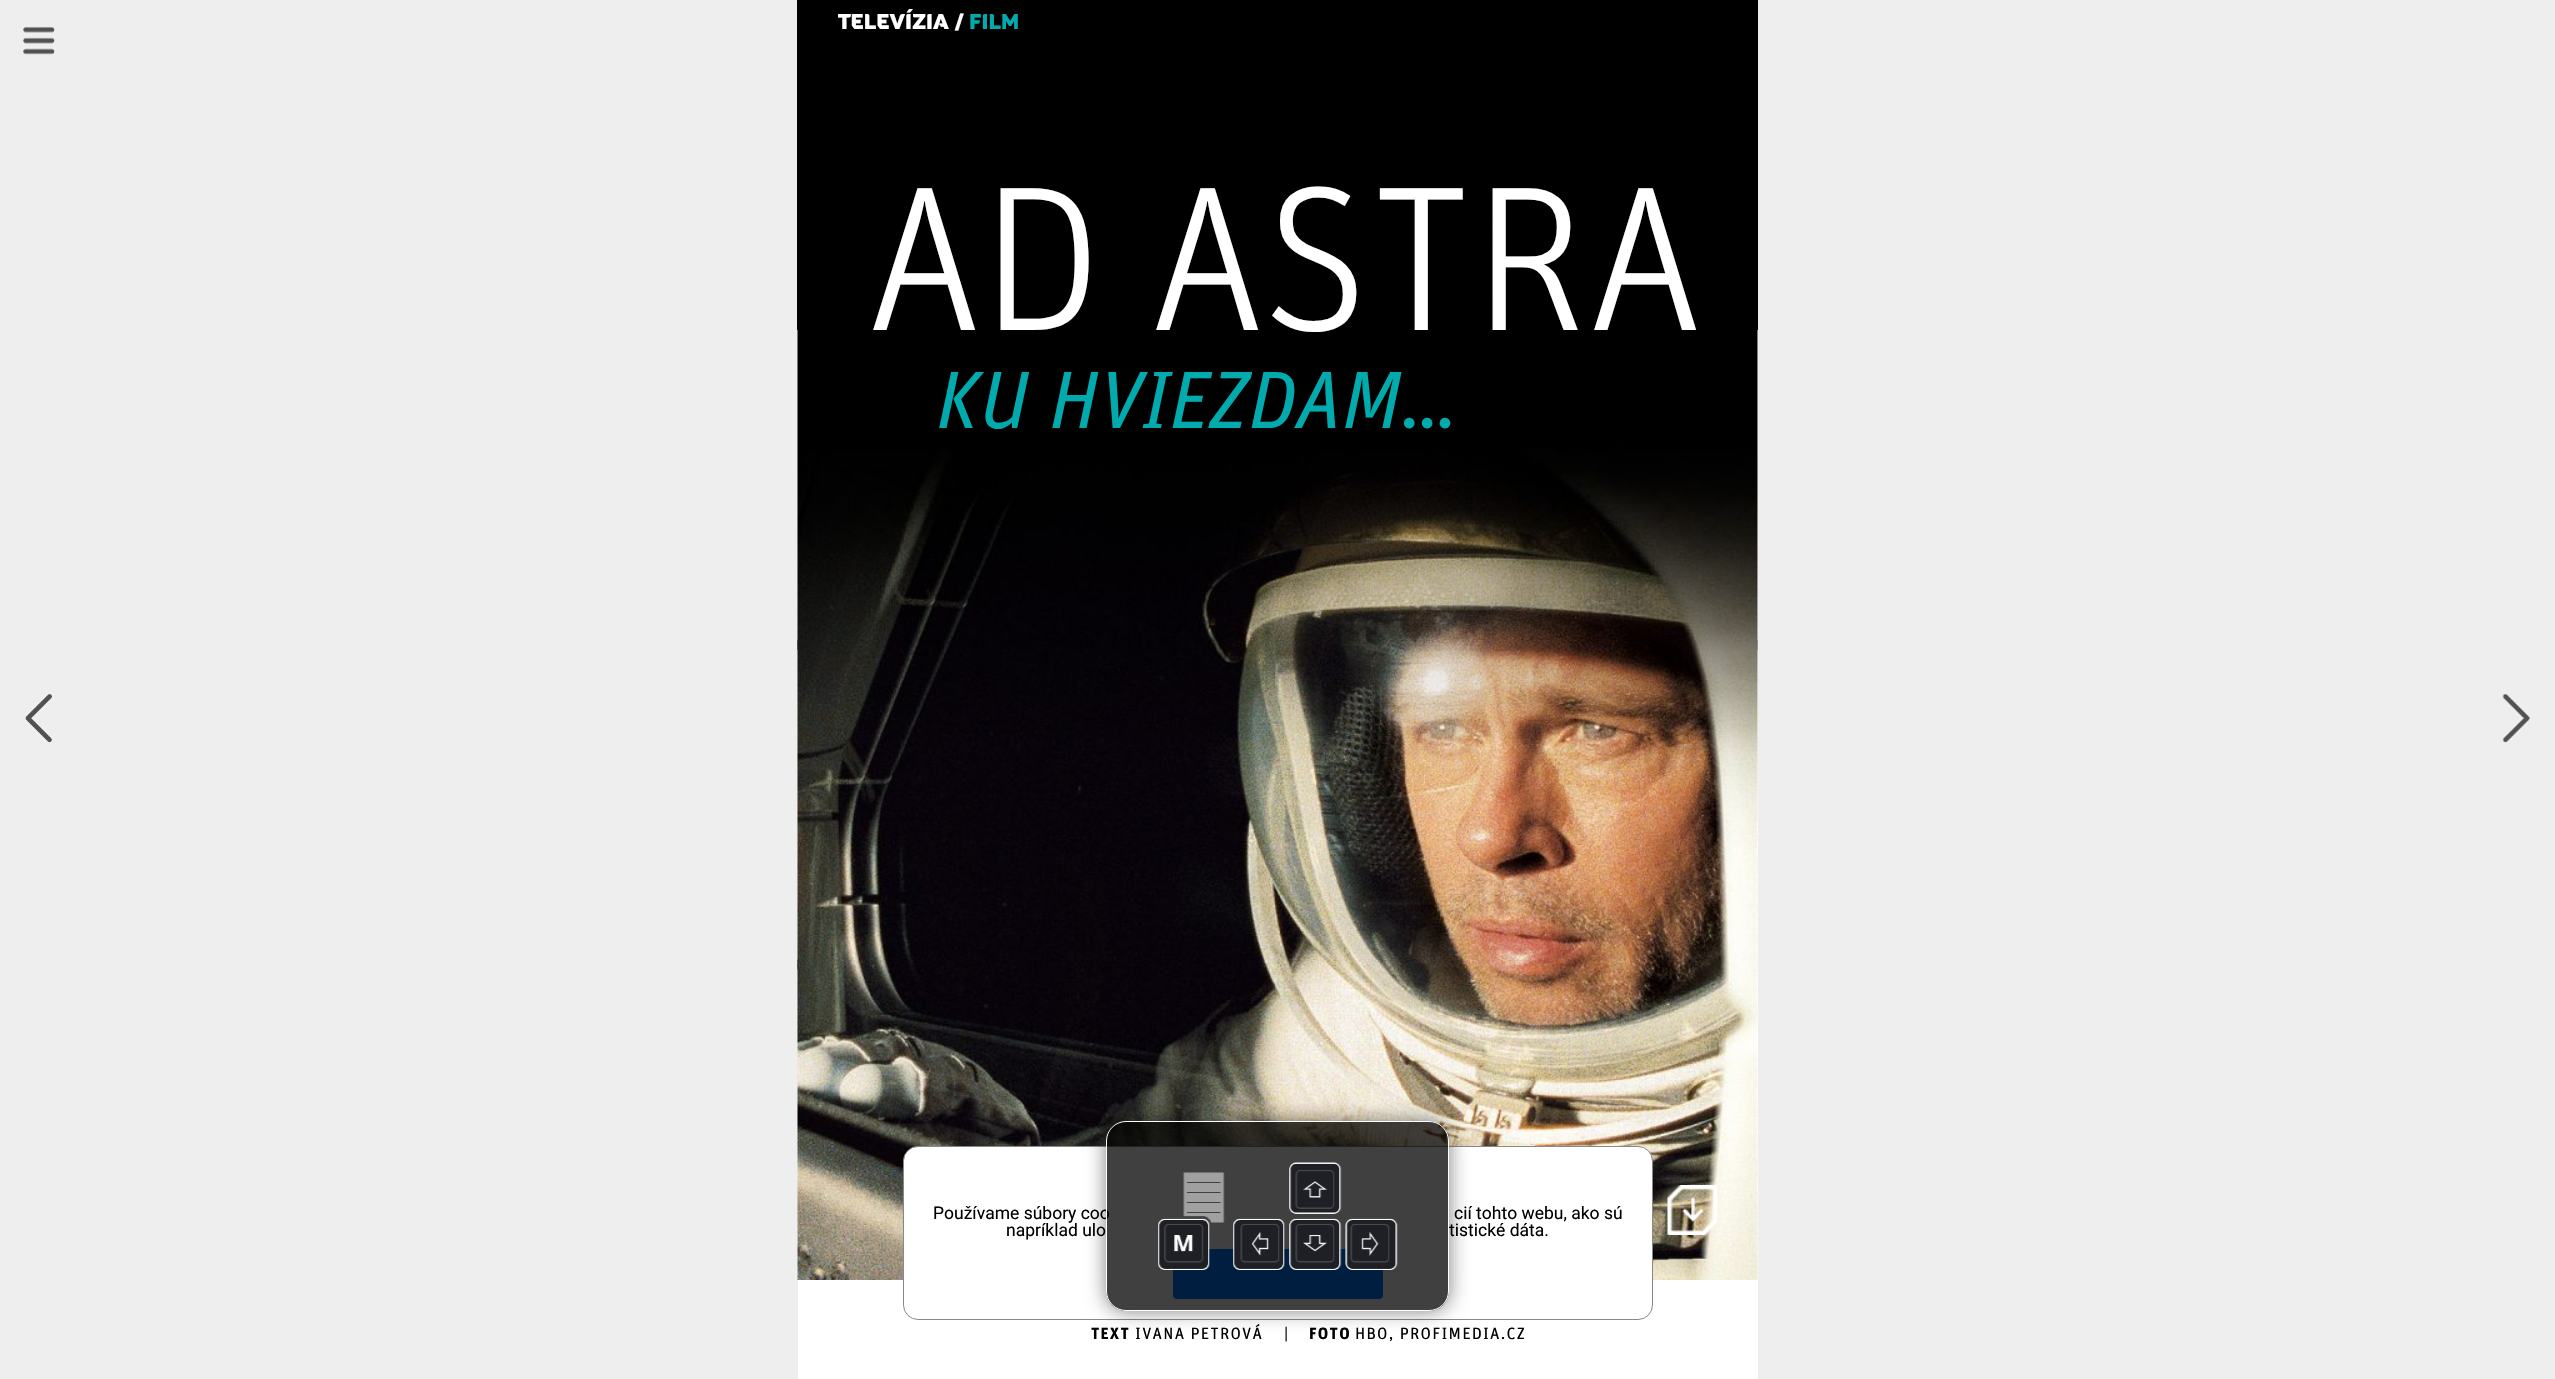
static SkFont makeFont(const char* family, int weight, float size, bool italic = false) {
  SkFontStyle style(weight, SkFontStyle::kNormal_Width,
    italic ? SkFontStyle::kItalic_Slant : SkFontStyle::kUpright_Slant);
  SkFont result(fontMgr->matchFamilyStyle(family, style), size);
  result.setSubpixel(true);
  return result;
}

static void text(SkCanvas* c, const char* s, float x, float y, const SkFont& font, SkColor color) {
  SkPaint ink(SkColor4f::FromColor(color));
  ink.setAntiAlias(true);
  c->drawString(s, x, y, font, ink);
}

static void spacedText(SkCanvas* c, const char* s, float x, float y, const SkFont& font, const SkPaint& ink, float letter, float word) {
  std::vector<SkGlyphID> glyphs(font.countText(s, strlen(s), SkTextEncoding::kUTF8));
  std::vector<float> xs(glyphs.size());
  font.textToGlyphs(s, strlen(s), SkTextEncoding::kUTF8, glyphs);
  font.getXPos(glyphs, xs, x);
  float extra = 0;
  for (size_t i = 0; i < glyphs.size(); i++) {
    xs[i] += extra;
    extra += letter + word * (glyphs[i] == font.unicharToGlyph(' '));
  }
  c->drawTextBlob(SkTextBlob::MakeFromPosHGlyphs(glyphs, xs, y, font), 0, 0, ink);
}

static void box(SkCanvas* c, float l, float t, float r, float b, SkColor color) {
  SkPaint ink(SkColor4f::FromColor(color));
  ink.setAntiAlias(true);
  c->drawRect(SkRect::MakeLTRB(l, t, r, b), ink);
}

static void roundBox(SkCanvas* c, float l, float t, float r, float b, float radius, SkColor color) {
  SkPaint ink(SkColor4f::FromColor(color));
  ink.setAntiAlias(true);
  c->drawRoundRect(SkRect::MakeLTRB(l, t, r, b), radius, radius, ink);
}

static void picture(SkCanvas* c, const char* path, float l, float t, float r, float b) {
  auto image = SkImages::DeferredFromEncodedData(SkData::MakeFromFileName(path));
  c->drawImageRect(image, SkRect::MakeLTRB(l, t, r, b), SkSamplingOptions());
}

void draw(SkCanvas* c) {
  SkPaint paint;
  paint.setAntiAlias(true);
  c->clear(0xffeeeeee);
  picture(c, "img_01.png", 23, 26, 55, 55);
  box(c, 798, 330, 1758, 1379, 0xffffffff);
  box(c, 797, 0, 1758, 330, 0xff000000);
  picture(c, "img_02.png", 797, 330, 1127, 650);
  picture(c, "img_03.png", 1127, 330, 1438, 640);
  picture(c, "img_04.png", 1437, 330, 1758, 650);
  picture(c, "img_05.png", 797, 640, 1127, 970);
  picture(c, "img_06.png", 1127, 640, 1438, 960);
  picture(c, "img_07.png", 1437, 640, 1758, 970);
  picture(c, "img_08.png", 797, 960, 1118, 1280);
  picture(c, "img_09.png", 1117, 960, 1438, 1146);
  picture(c, "img_10.png", 1437, 960, 1758, 1280);
  c->save();
  c->clipRect(SkRect::MakeLTRB(838, 0, 1286, 40));
  SkFont face1 = makeFont("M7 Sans", 400, 21.25f);
  text(c, "TELEVÍZIA /", 838, 29, face1, 0xffffffff);
  c->restore();
  text(c, "FILM", 969, 29, face1, 0xff00aaad);
  SkFont face2 = makeFont("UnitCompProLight", 300, 206.25f);
  text(c, "AD ASTRA", 867, 330, face2, 0xffffffff);
  SkFont face3 = makeFont("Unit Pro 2", 400, 81.25f);
  paint.setColor(0xff00aaad);
  spacedText(c, "KU HVIEZDAM…", 936, 428, face3, paint, 0, 2);
  picture(c, "img_11.png", 1667, 1185, 1718, 1235);
  picture(c, "img_12.png", 1682, 1197, 1704, 1222);
  SkFont face4 = makeFont("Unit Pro", 700, 16.25f);
  paint.setColor(0xff000000);
  spacedText(c, "TEXT", 1091, 1339, face4, paint, 1.25f, 0);
  SkFont face5 = makeFont("Unit Pro", 400, 16.25f);
  spacedText(c, "IVANA PETROVÁ    |", 1135, 1339, face5, paint, 1.25f, 0);
  spacedText(c, "FOTO", 1309, 1339, face4, paint, 1.25f, 0);
  spacedText(c, "HBO, PROFIMEDIA.CZ", 1355, 1339, face5, paint, 1.25f, 0);
  picture(c, "img_13.png", 25, 694, 52, 743);
  picture(c, "img_14.png", 2502, 694, 2530, 743);
  paint.setColor(0xffffffff);
  c->drawRoundRect(SkRect::MakeLTRB(903.5f, 1146.5f, 1652.5f, 1319.5f), 14.5f, 14.5f, paint);
  paint.setStyle(SkPaint::kStroke_Style);
  paint.setStrokeWidth(1);
  paint.setColor(0xff888888);
  c->drawRoundRect(SkRect::MakeLTRB(903.5f, 1146.5f, 1652.5f, 1319.5f), 14.5f, 14.5f, paint);
  roundBox(c, 1173, 1249, 1383, 1299, 4, 0xff007aff);
  c->save();
  c->clipPath(SkPathBuilder(SkPathFillType::kEvenOdd).moveTo(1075, 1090).lineTo(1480, 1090).lineTo(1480, 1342).lineTo(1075, 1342).close().moveTo(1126, 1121).lineTo(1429, 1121).cubicTo(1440, 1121, 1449, 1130, 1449, 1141).lineTo(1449, 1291).cubicTo(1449, 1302, 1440, 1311, 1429, 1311).lineTo(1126, 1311).cubicTo(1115, 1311, 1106, 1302, 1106, 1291).lineTo(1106, 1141).cubicTo(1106, 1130, 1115, 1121, 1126, 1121).close().detach(), true);
  paint.setStyle(SkPaint::kFill_Style);
  paint.setColor(0x80000000);
  paint.setMaskFilter(SkMaskFilter::MakeBlur(kNormal_SkBlurStyle, 10));
  c->drawRoundRect(SkRect::MakeLTRB(1106, 1121, 1449, 1311), 20, 20, paint);
  paint.setMaskFilter(nullptr);
  c->restore();
  SkFont face6 = makeFont("Roboto", 400, 17.5f);
  text(c, "Používame súbory coo", 933, 1219, face6, 0xff000000);
  text(c, "tistické dáta.", 1449, 1236, face6, 0xff000000);
  roundBox(c, 1106, 1121, 1449, 1311, 20, 0xbf000000);
  picture(c, "img_15.png", 1158, 1162, 1398, 1270);
  paint.setStyle(SkPaint::kStroke_Style);
  paint.setColor(0xffffffff);
  c->drawRoundRect(SkRect::MakeLTRB(1106.5f, 1121.5f, 1448.5f, 1310.5f), 19.5f, 19.5f, paint);
  text(c, "cií tohto webu, ako sú", 1454, 1219, face6, 0xff000000);
  text(c, "napríklad ulo", 1006, 1236, face6, 0xff000000);
}
